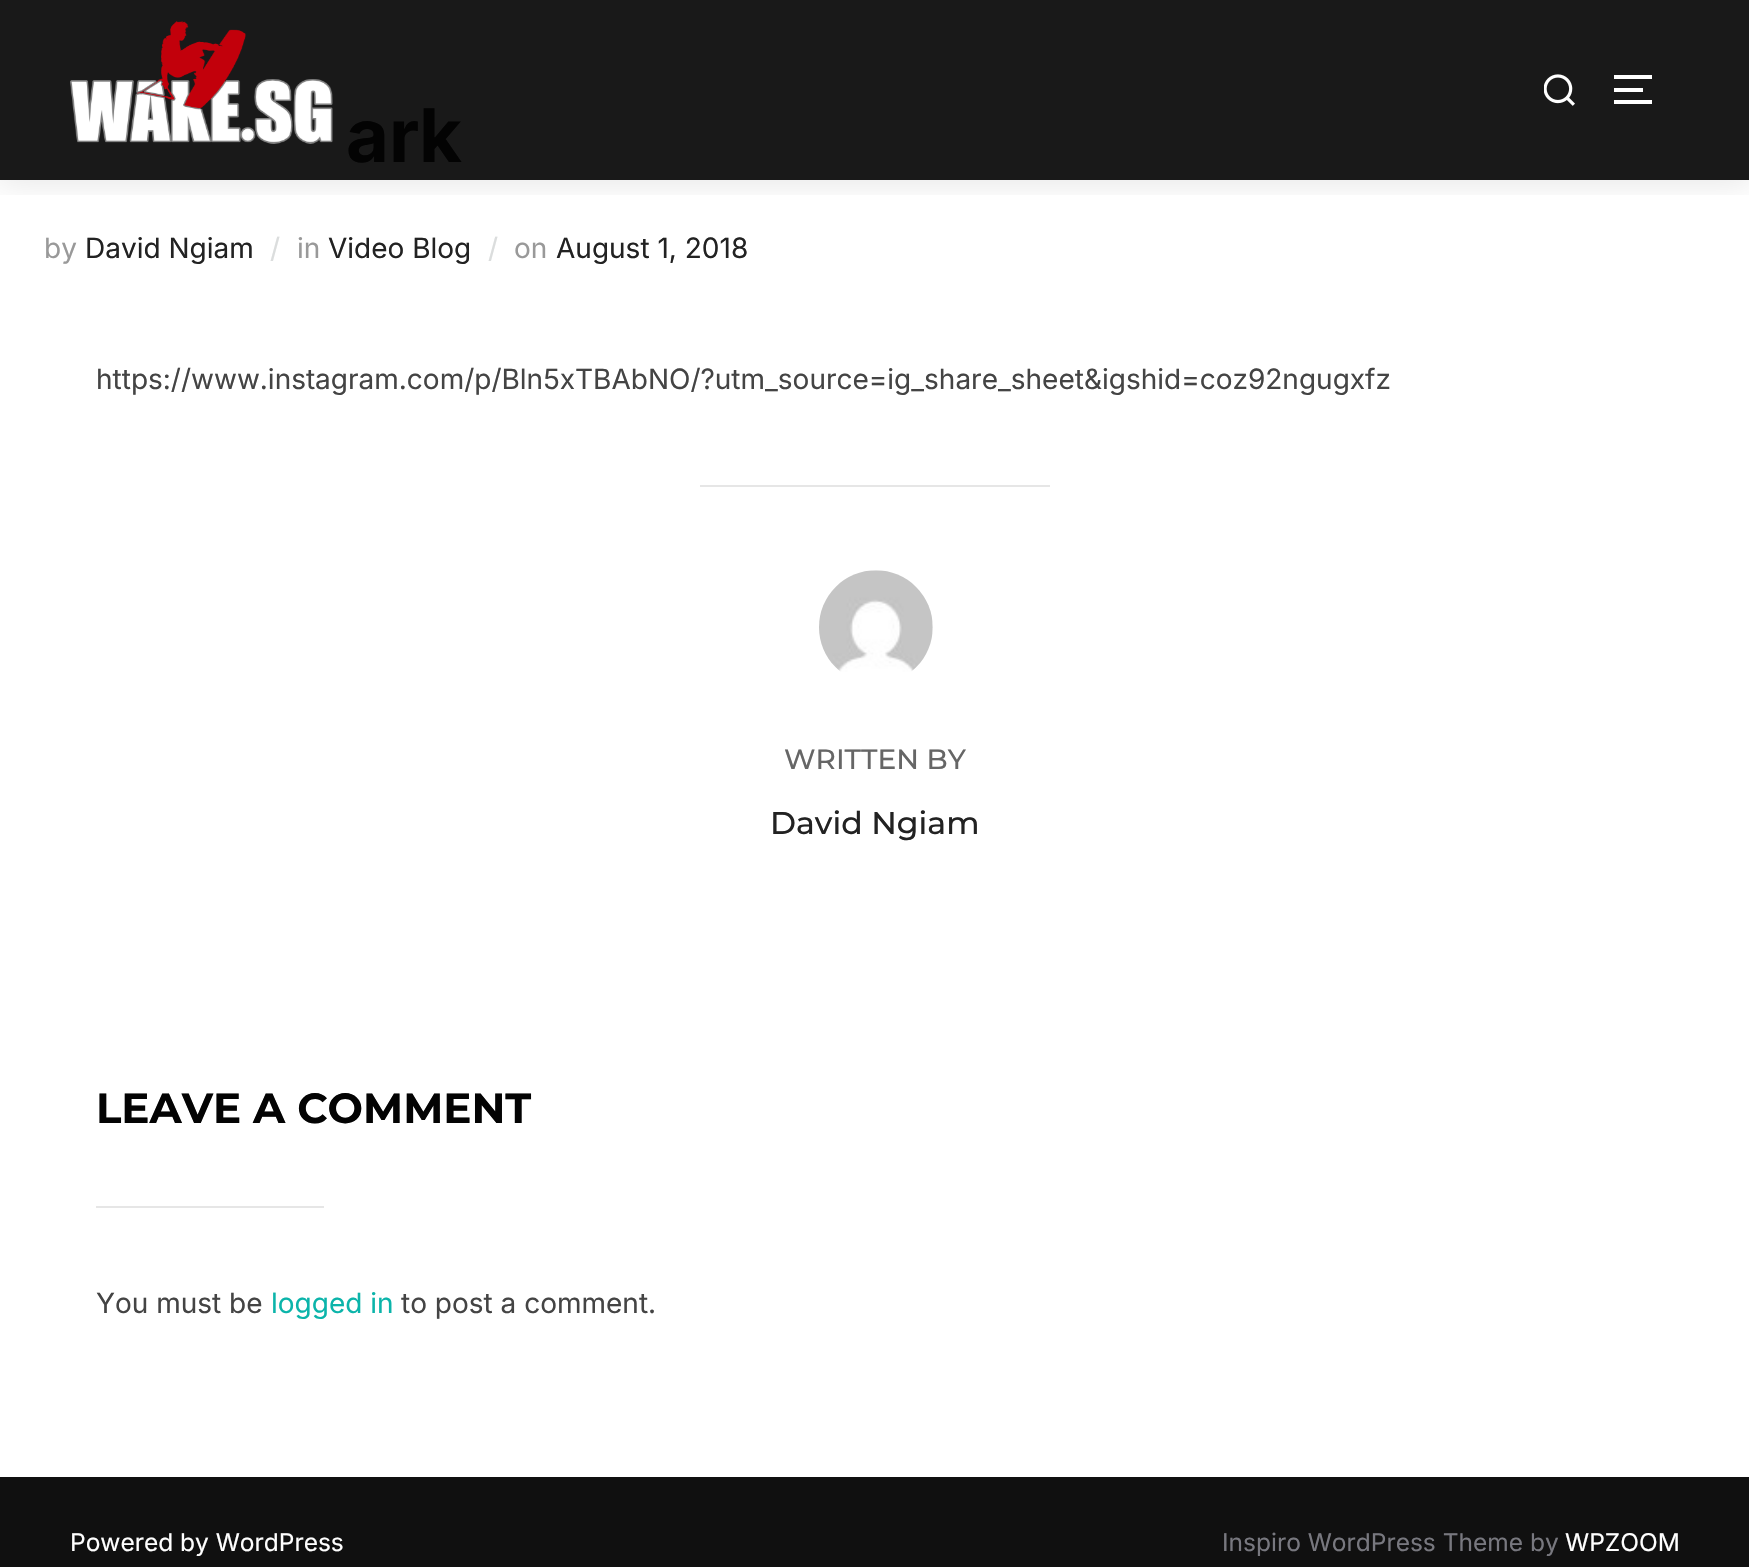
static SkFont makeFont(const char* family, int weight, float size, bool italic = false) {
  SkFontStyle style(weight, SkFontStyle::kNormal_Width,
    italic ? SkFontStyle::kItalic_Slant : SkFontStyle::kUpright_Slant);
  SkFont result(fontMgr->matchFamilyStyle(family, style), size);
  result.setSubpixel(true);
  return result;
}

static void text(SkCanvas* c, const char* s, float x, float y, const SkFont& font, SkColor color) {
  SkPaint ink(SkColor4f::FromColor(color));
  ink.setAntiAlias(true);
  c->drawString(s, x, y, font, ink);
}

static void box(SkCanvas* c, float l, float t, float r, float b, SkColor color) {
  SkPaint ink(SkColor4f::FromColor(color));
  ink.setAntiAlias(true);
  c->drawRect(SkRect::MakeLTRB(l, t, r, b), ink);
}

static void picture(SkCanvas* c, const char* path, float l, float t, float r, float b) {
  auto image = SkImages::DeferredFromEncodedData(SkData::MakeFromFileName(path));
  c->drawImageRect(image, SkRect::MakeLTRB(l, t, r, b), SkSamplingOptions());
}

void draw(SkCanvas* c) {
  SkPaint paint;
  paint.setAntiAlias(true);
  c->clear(0xffffffff);
  box(c, 0, 0, 1749, 180, 0xff191919);
  c->save();
  c->clipRect(SkRect::MakeLTRB(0, 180, 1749, 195));
  paint.setColor(0x1a000000);
  paint.setMaskFilter(SkMaskFilter::MakeBlur(kNormal_SkBlurStyle, 16));
  c->drawRect(SkRect::MakeLTRB(-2, -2, 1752, 182), paint);
  paint.setMaskFilter(nullptr);
  c->restore();
  picture(c, "img_01.png", 70, 21, 333, 144);
  picture(c, "img_02.png", 1544, 74, 1575, 106);
  box(c, 1614, 75, 1652, 79, 0xffffffff);
  box(c, 1614, 88, 1643, 92, 0xffffffff);
  box(c, 1614, 100, 1652, 104, 0xffffffff);
  SkFont face1 = makeFont("Inter", 700, 74);
  text(c, "ark", 346, 162, face1, 0xff030303);
  SkFont face2 = makeFont("Inter", 400, 28);
  text(c, "by", 44, 258, face2, 0xff999999);
  text(c, "David Ngiam", 85, 258, face2, 0xff222222);
  text(c, "/", 270, 258, face2, 0xffdbdddd);
  text(c, "in", 297, 258, face2, 0xff999999);
  text(c, "Video Blog", 328, 258, face2, 0xff222222);
  text(c, "/", 488, 258, face2, 0xffdbdddd);
  text(c, "on", 514, 258, face2, 0xff999999);
  text(c, "August 1, 2018", 556, 258, face2, 0xff222222);
  text(c, "https://www.instagram.com/p/Bln5xTBAbNO/?utm_source=ig_share_sheet&igshid=coz92ngugxfz", 96, 389, face2, 0xff444444);
  box(c, 700, 485, 1050, 487, 0xffe6e6e6);
  picture(c, "img_03.png", 819, 570, 933, 672);
  SkFont face3 = makeFont("Montserrat", 500, 28);
  text(c, "WRITTEN BY", 784, 769, face3, 0xff666666);
  SkFont face4 = makeFont("Montserrat", 500, 31.5f);
  text(c, "David Ngiam", 770, 834, face4, 0xff222222);
  SkFont face5 = makeFont("Montserrat", 700, 42);
  text(c, "LEAVE A COMMENT", 96, 1123, face5, 0xff030303);
  box(c, 96, 1206, 324, 1208, 0xffe6e6e6);
  text(c, "You must be", 96, 1313, face2, 0xff444444);
  text(c, "logged in", 271, 1313, face2, 0xff0bb4aa);
  text(c, "to post a comment.", 401, 1313, face2, 0xff444444);
  box(c, 0, 1477, 1749, 1567, 0xff101010);
  SkFont face6 = makeFont("Inter", 400, 24.5f);
  text(c, "Powered by WordPress", 70, 1551, face6, 0xffffffff);
  text(c, "Inspiro WordPress Theme by", 1222, 1551, face6, 0xff78787f);
  text(c, "WPZOOM", 1565, 1551, face6, 0xffffffff);
}
